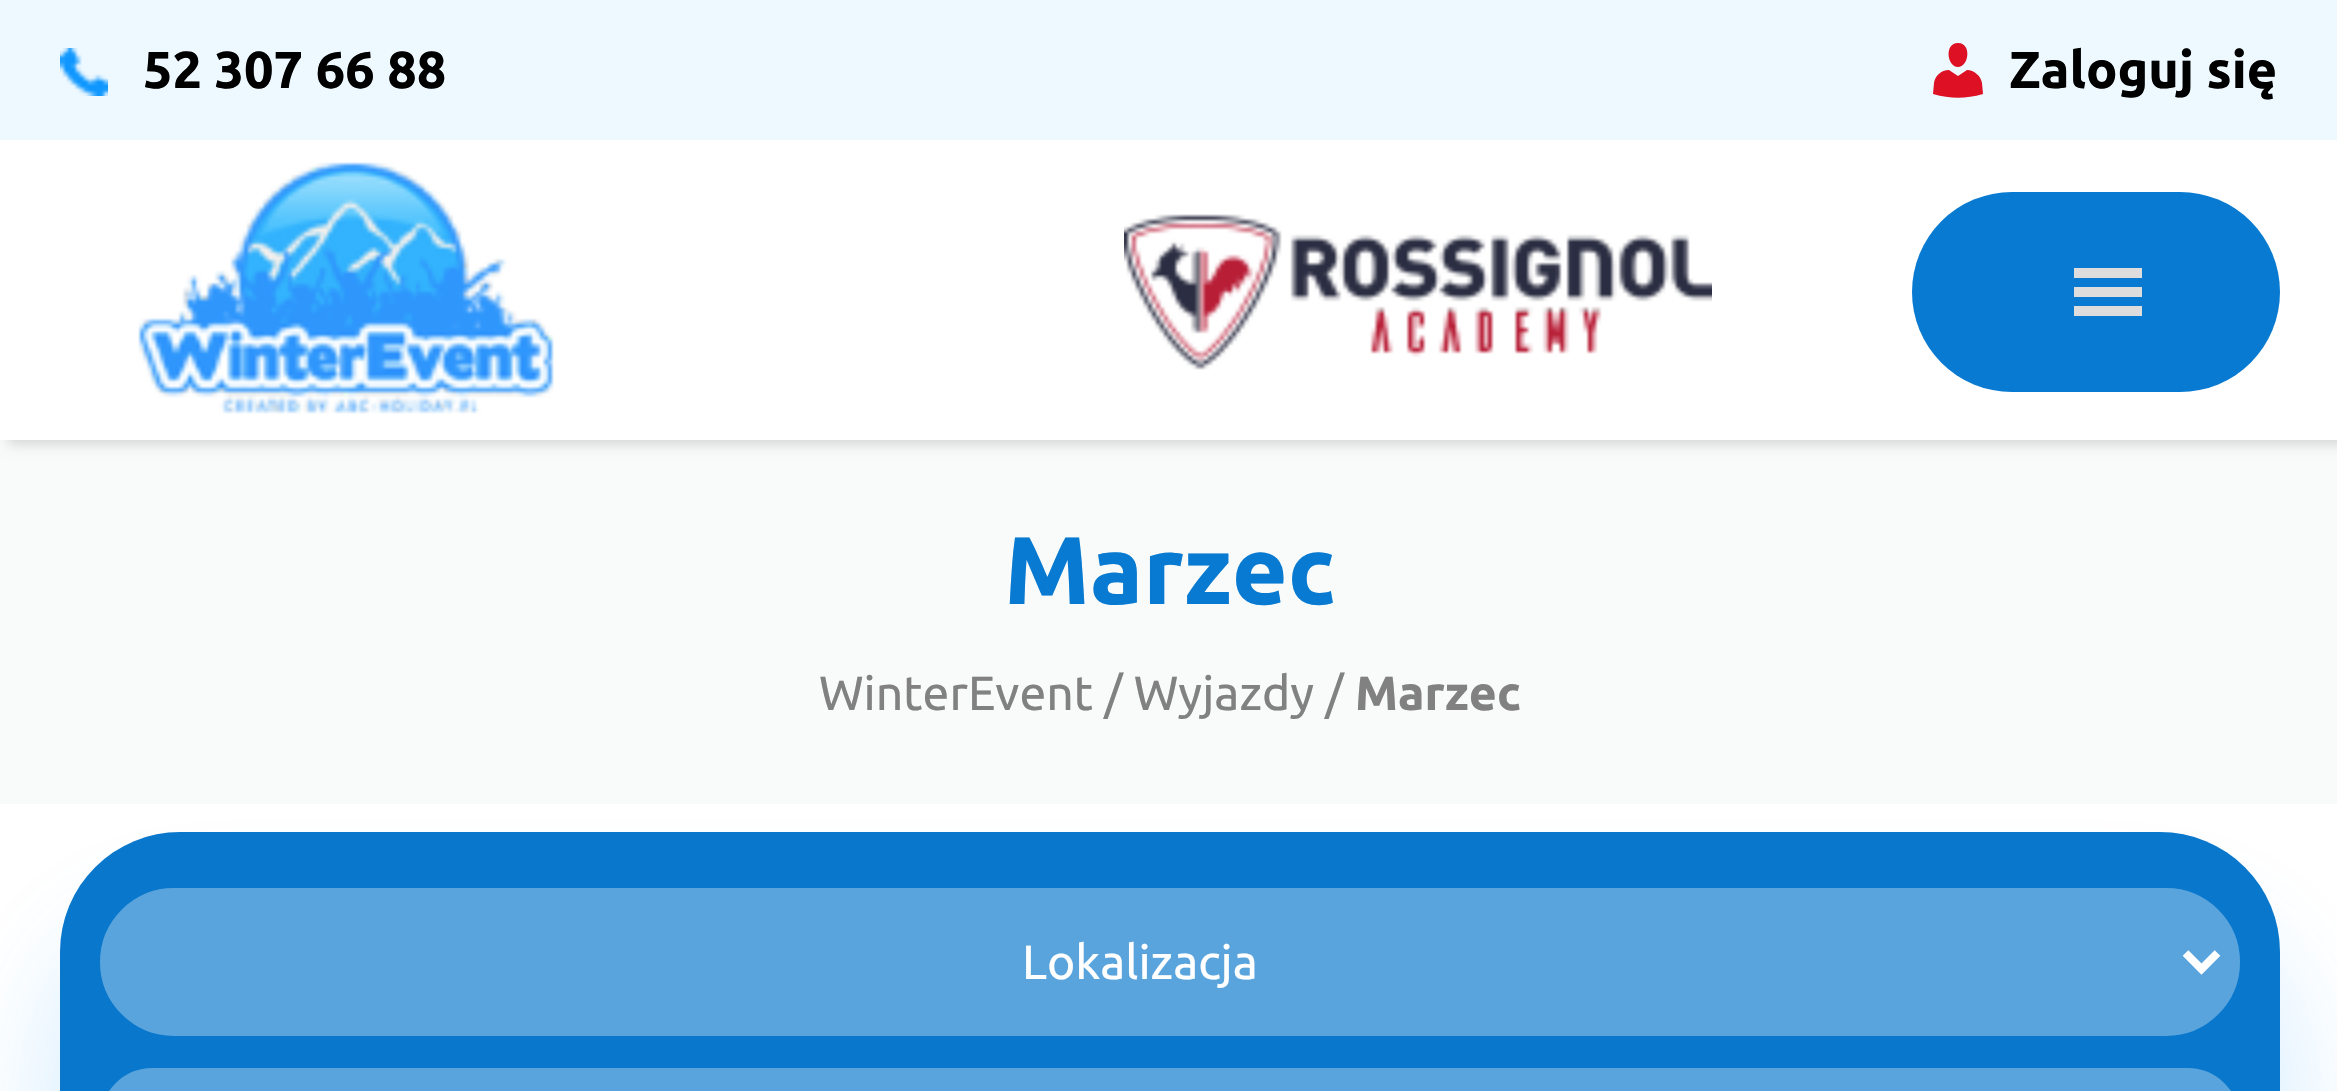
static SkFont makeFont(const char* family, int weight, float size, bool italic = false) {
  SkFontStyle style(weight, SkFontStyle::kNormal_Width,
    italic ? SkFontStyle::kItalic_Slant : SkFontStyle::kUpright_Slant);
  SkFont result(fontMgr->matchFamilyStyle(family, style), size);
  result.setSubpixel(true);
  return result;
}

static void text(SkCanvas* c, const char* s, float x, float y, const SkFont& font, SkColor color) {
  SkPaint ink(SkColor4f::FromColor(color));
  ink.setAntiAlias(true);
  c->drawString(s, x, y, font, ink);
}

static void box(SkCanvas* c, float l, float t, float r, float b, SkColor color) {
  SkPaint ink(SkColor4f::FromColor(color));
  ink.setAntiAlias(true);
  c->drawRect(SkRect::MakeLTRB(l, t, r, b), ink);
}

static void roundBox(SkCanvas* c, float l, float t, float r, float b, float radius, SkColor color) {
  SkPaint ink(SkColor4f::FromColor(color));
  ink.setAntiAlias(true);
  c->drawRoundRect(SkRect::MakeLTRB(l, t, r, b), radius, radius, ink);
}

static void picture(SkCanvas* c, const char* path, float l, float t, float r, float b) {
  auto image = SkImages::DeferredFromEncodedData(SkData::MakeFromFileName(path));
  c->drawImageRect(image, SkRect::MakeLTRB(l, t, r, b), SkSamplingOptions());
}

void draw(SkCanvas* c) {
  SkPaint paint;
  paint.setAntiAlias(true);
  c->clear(0xfff9fafa);
  paint.setColor(0x26010202);
  paint.setMaskFilter(SkMaskFilter::MakeBlur(kNormal_SkBlurStyle, 6));
  c->drawRect(SkRect::MakeLTRB(8, 4, 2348, 444), paint);
  paint.setMaskFilter(nullptr);
  box(c, 0, 140, 2337, 440, 0xffffffff);
  box(c, 0, 0, 2337, 140, 0xffedf8ff);
  picture(c, "img_01.png", 60, 48, 108, 96);
  SkFont face1 = makeFont("Ubuntu", 700, 52);
  text(c, "52 307 66 88", 143, 88, face1, 0xff000000);
  paint.setColor(0xffdd1024);
  c->drawPath(SkPathBuilder().moveTo(1958, 67).cubicTo(1947, 67, 1944, 43, 1958, 43).cubicTo(1972, 43, 1969, 67, 1958, 67).close().moveTo(1958, 76).lineTo(1967, 70).cubicTo(1974, 70, 1981, 76, 1982, 83).lineTo(1983, 94).cubicTo(1965, 99, 1951, 99, 1933, 94).lineTo(1934, 83).cubicTo(1935, 76, 1941, 70, 1949, 70).close().detach(), paint);
  text(c, "Zaloguj się", 2009, 88, face1, 0xff000000);
  picture(c, "img_02.png", 138, 162, 554, 414);
  picture(c, "img_03.png", 1124, 214, 1712, 370);
  roundBox(c, 1912, 192, 2280, 392, 100, 0xff087ad1);
  paint.setColor(0xffdddddd);
  c->drawPath(SkPathBuilder().moveTo(2074, 316).lineTo(2142, 316).lineTo(2142, 306).lineTo(2074, 306).close().moveTo(2074, 268).lineTo(2074, 278).lineTo(2142, 278).lineTo(2142, 268).close().moveTo(2074, 297).lineTo(2142, 297).lineTo(2142, 287).lineTo(2074, 287).close().detach(), paint);
  SkFont face2 = makeFont("Ubuntu", 700, 96);
  text(c, "Marzec", 1004, 604, face2, 0xff087ad1);
  SkFont face3 = makeFont("Ubuntu", 400, 48);
  text(c, "WinterEvent / Wyjazdy /", 819, 710, face3, 0xff818181);
  SkFont face4 = makeFont("Ubuntu", 700, 48);
  text(c, "Marzec", 1355, 710, face4, 0xff818181);
  box(c, 0, 804, 2337, 1091, 0xffffffff);
  paint.setColor(0x331097ff);
  paint.setMaskFilter(SkMaskFilter::MakeBlur(kNormal_SkBlurStyle, 60));
  c->drawRoundRect(SkRect::MakeLTRB(60, 932, 2280, 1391), 120, 120, paint);
  paint.setMaskFilter(nullptr);
  roundBox(c, 60, 832, 2280, 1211, 120, 0xff0877cc);
  paint.setColor(0xff59a4dd);
  c->drawRoundRect(SkRect::MakeLTRB(104, 892, 2236, 1032), 70, 70, paint);
  paint.setStyle(SkPaint::kStroke_Style);
  paint.setStrokeWidth(8);
  c->drawRoundRect(SkRect::MakeLTRB(104, 892, 2236, 1032), 70, 70, paint);
  paint.setColor(0xffffffff);
  c->drawPath(SkPathBuilder().moveTo(2185.5f, 953).lineTo(2201.5f, 969).lineTo(2217.5f, 953).detach(), paint);
  text(c, "Lokalizacja", 1022, 979, face3, 0xffffffff);
  paint.setStyle(SkPaint::kFill_Style);
  paint.setColor(0xff59a4dd);
  c->drawRoundRect(SkRect::MakeLTRB(104, 1072, 2236, 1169), 70, 70, paint);
  paint.setStyle(SkPaint::kStroke_Style);
  c->drawRoundRect(SkRect::MakeLTRB(104, 1072, 2236, 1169), 70, 70, paint);
}
